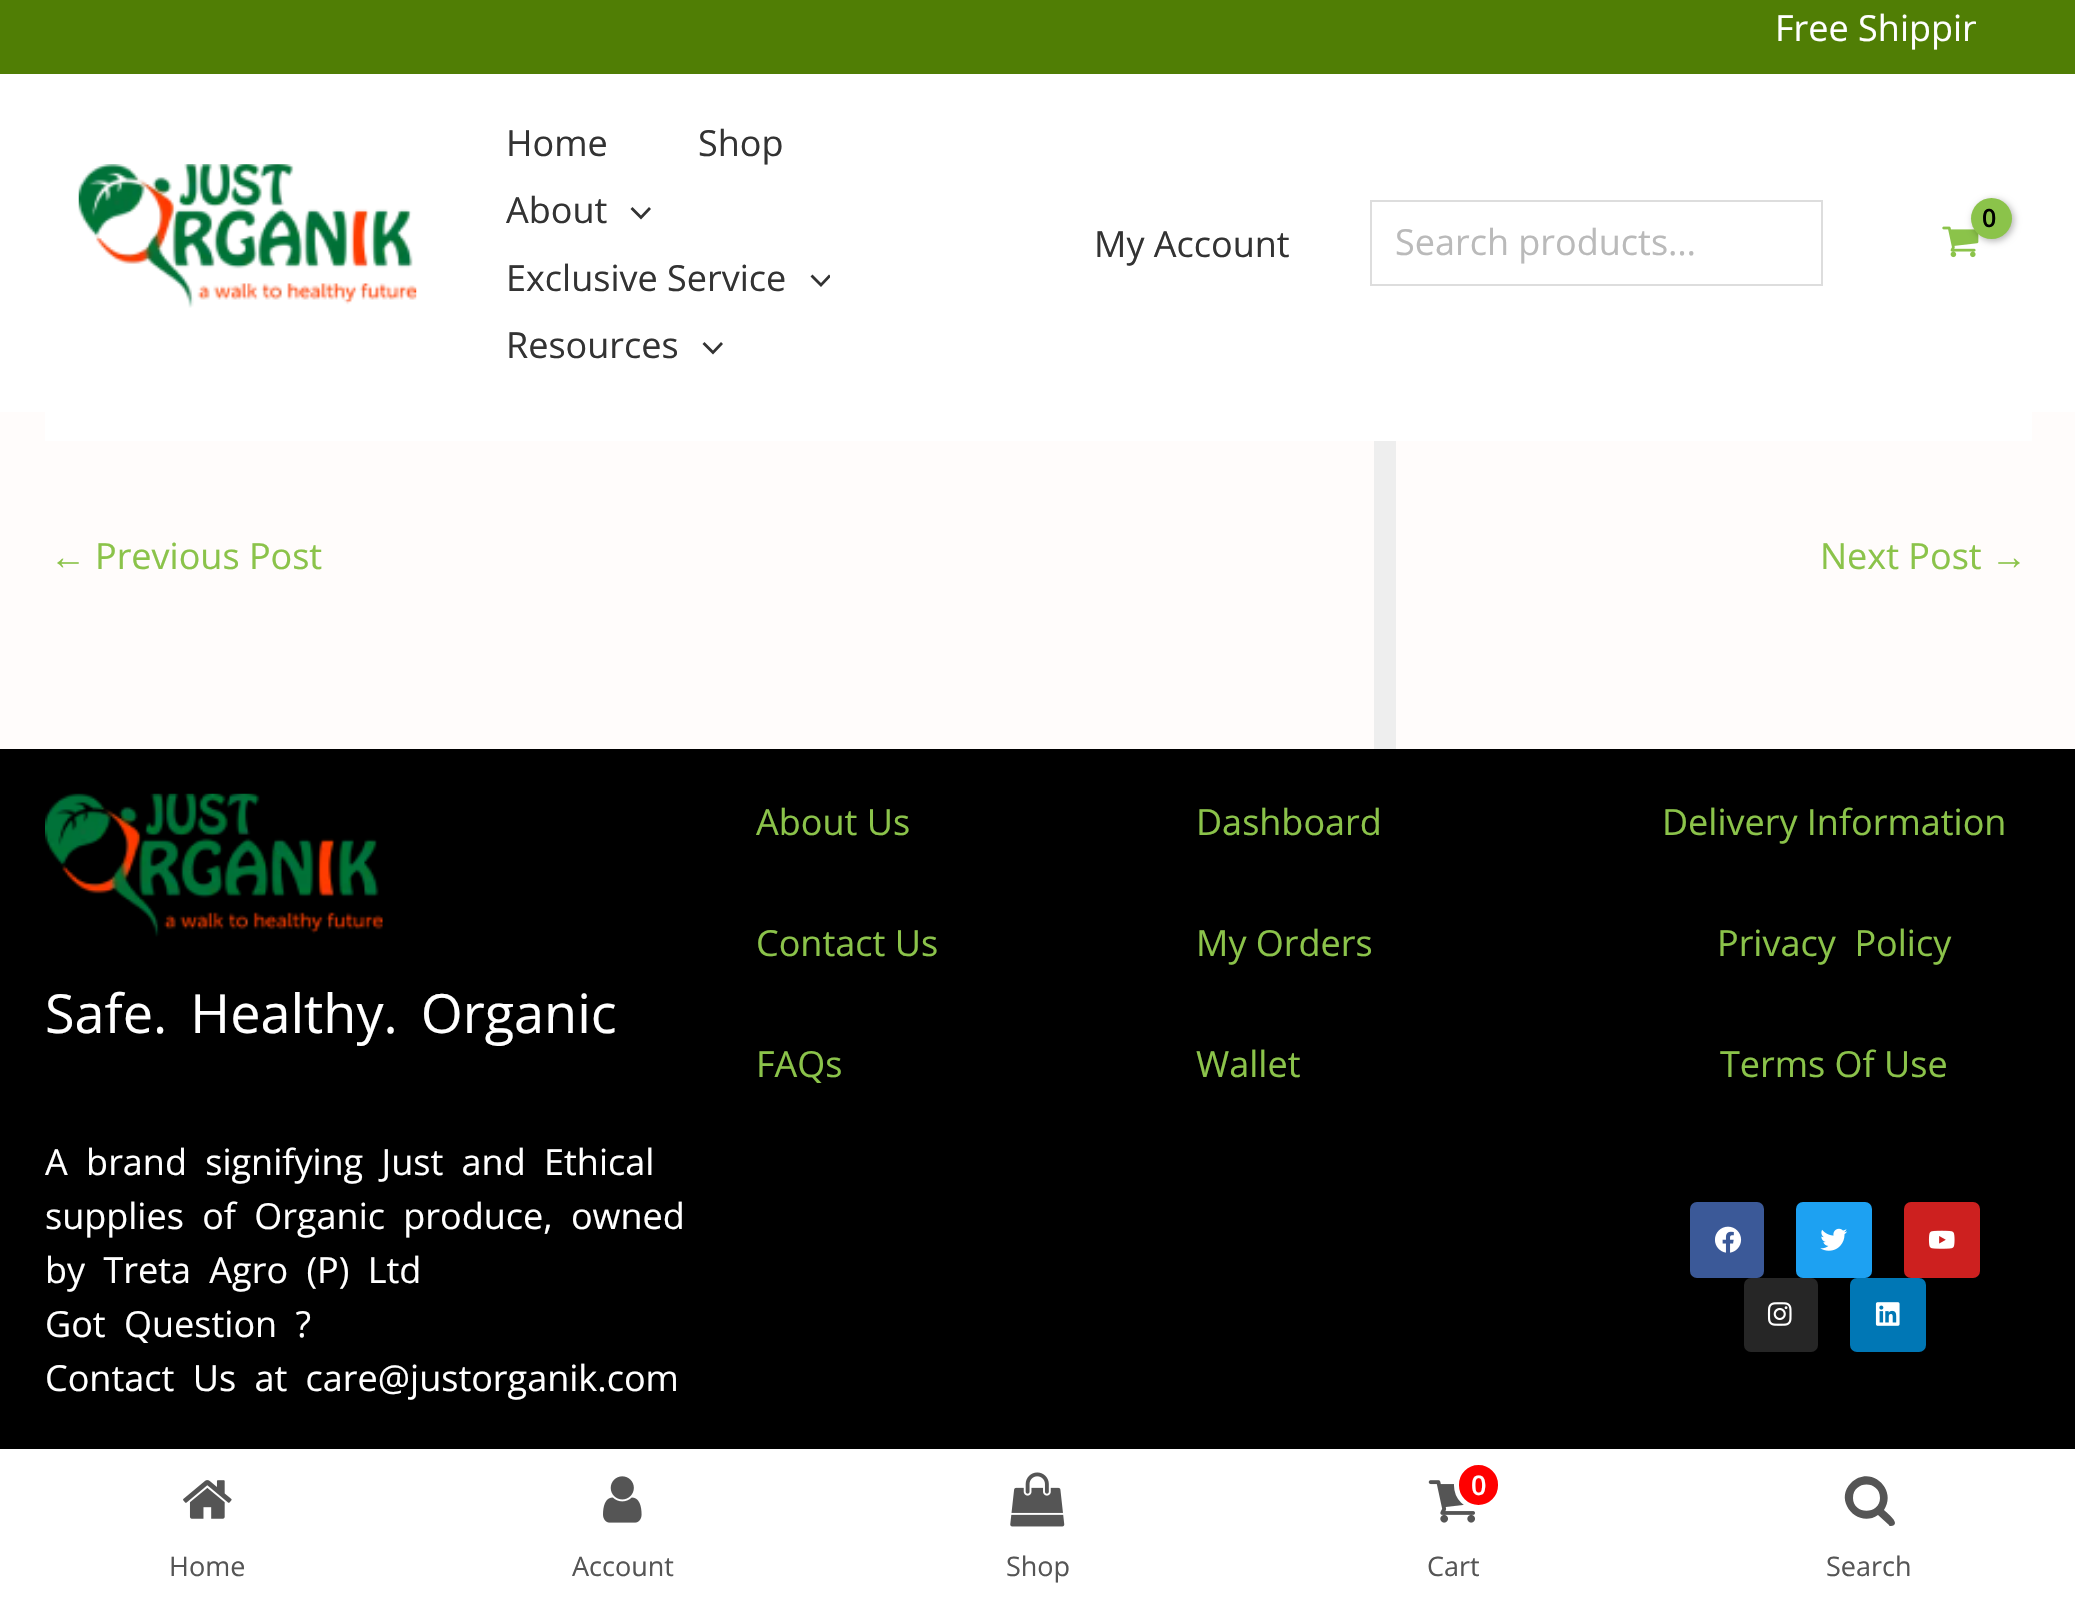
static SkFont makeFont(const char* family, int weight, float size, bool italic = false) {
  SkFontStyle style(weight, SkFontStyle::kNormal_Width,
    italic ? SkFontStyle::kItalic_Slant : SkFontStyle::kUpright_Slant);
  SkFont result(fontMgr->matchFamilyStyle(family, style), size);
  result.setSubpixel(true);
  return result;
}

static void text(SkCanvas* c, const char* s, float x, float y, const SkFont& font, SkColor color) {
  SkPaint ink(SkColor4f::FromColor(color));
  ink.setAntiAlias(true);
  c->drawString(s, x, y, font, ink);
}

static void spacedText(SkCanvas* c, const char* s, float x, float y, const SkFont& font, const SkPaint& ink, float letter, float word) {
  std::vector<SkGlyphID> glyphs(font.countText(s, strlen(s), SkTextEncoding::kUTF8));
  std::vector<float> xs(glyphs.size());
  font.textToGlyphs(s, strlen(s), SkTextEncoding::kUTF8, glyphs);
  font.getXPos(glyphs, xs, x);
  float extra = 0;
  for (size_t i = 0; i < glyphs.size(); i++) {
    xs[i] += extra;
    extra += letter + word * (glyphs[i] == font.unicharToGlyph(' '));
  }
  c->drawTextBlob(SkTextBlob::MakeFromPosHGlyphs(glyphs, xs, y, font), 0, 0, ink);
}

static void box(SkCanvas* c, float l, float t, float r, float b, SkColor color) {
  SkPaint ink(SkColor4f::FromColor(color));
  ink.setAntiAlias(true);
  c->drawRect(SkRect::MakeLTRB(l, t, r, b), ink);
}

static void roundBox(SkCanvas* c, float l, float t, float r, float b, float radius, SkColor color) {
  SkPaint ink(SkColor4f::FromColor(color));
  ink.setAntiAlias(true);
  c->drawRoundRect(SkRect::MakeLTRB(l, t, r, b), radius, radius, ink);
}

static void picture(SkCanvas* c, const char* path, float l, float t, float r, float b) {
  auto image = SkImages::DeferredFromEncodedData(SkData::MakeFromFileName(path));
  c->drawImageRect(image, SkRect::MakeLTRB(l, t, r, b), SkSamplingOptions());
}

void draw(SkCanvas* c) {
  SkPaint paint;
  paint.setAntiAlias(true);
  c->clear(0xffffffff);
  box(c, 0, 0, 2075, 74, 0xff507e05);
  c->save();
  c->clipRect(SkRect::MakeLTRB(101, 0, 1976, 59));
  SkFont face1 = makeFont("Open Sans", 400, 36);
  text(c, "Free Shippin", 1775, 41, face1, 0xffffffff);
  c->restore();
  picture(c, "img_01.png", 78, 164, 417, 308);
  text(c, "Home", 506, 156, face1, 0xff333333);
  text(c, "Shop", 698, 156, face1, 0xff333333);
  text(c, "About", 506, 223, face1, 0xff333333);
  paint.setColor(0xff333333);
  c->drawPath(SkPathBuilder().moveTo(630.5f, 209).lineTo(641, 219.5f).lineTo(651, 209).lineTo(649, 207).lineTo(641, 215.5f).lineTo(632.5f, 207).close().detach(), paint);
  text(c, "Exclusive Service", 506, 291, face1, 0xff333333);
  c->save();
  c->clipRect(SkRect::MakeLTRB(810, 270, 830, 290));
  c->drawPath(SkPathBuilder().moveTo(810.5f, 276.5f).lineTo(821, 287).lineTo(831, 276.5f).lineTo(829, 274.5f).lineTo(821, 283).lineTo(812.5f, 274.5f).close().detach(), paint);
  c->restore();
  text(c, "Resources", 506, 358, face1, 0xff333333);
  c->drawPath(SkPathBuilder().moveTo(702.5f, 344).lineTo(713, 354.5f).lineTo(723, 344).lineTo(721, 342).lineTo(713, 350.5f).lineTo(704.5f, 342).close().detach(), paint);
  picture(c, "img_02.png", 1942, 226, 1979, 258);
  paint.setColor(0x4d000000);
  paint.setMaskFilter(SkMaskFilter::MakeBlur(kNormal_SkBlurStyle, 3.5f));
  c->drawRoundRect(SkRect::MakeLTRB(1973, 200, 2014, 241), 20.5f, 20.5f, paint);
  paint.setMaskFilter(nullptr);
  paint.setColor(0xff8bc34a);
  c->drawCircle(1991.5f, 218.5f, 20.5f, paint);
  SkFont face2 = makeFont("Open Sans", 600, 25);
  paint.setColor(0xff000000);
  spacedText(c, "0", 1982, 227, face2, paint, -1, 0);
  text(c, "My Account", 1094, 257, face1, 0xff333333);
  paint.setStyle(SkPaint::kStroke_Style);
  paint.setStrokeWidth(2);
  paint.setColor(0xffdddddd);
  c->drawRect(SkRect::MakeLTRB(1371, 201, 1822, 285), paint);
  text(c, "Search products…", 1395, 255, face1, 0xffbababa);
  paint.setStyle(SkPaint::kFill_Style);
  {
    const SkColor colors[] = {0xfffffcfb, 0xfffffcfb, 0xffeeeeee, 0xfffffcfb, 0xfffffcfb, 0xffeeeeee, 0xfffffcfb, 0xfffffcfb, 0xffeeeeee, 0xfffffcfb, 0xfffffcfb, 0xffeeeeee, 0xfffffcfb, 0xfffffcfb, 0xffeeeeee, 0xfffffcfb, 0xfffffcfb, 0xffeeeeee, 0xfffffcfb, 0xfffffcfb, 0xffeeeeee, 0xfffffcfb, 0xfffffcfb, 0xffeeeeee, 0xffeeeeee, 0xfffffcfb, 0xfffffcfb, 0xffeeeeee, 0xfffffcfb, 0xfffffcfb, 0xffeeeeee, 0xfffffcfb, 0xfffffcfb, 0xffeeeeee, 0xfffffcfb, 0xfffffcfb, 0xffeeeeee, 0xfffffcfb, 0xfffffcfb, 0xffeeeeee};
    const float stops[] = {0, 0.08f, 0.08f, 0.08f, 0.15f, 0.15f, 0.15f, 0.23f, 0.23f, 0.23f, 0.31f, 0.31f, 0.31f, 0.38f, 0.38f, 0.38f, 0.46f, 0.46f, 0.46f, 0.54f, 0.54f, 0.54f, 0.61f, 0.61f, 0.62f, 0.62f, 0.69f, 0.69f, 0.69f, 0.77f, 0.77f, 0.77f, 0.85f, 0.85f, 0.85f, 0.92f, 0.92f, 0.92f, 1, 1};
    const SkPoint ends[] = {{0, -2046}, {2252, -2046}};
    paint.setShader(SkGradientShader::MakeLinear(ends, colors, stops, 40, SkTileMode::kClamp));
    paint.setAlpha(255);
  }
  c->drawRect(SkRect::MakeLTRB(0, 412, 2075, 749), paint);
  box(c, 45, 412, 2032, 441, 0xffffffff);
  SkFont face3 = makeFont("Liberation Sans", 400, 36);
  text(c, "←", 50, 569, face3, 0xff8bc34a);
  text(c, "Previous Post", 95, 569, face1, 0xff8bc34a);
  text(c, "Next Post", 1820, 569, face1, 0xff8bc34a);
  text(c, "→", 1991, 569, face3, 0xff8bc34a);
  box(c, 0, 749, 2075, 1449, 0xff000000);
  text(c, "About Us", 756, 835, face1, 0xff8bc34a);
  text(c, "Contact Us", 756, 956, face1, 0xff8bc34a);
  text(c, "FAQs", 756, 1077, face1, 0xff8bc34a);
  text(c, "Dashboard", 1196, 835, face1, 0xff8bc34a);
  text(c, "My Orders", 1196, 956, face1, 0xff8bc34a);
  text(c, "Wallet", 1196, 1077, face1, 0xff8bc34a);
  text(c, "Delivery Information", 1662, 835, face1, 0xff8bc34a);
  text(c, "Privacy  Policy", 1717, 956, face1, 0xff8bc34a);
  text(c, "Terms Of Use", 1720, 1077, face1, 0xff8bc34a);
  roundBox(c, 1690, 1202, 1764, 1278, 7, 0xff3b5998);
  picture(c, "img_03.png", 1715, 1226, 1742, 1253);
  roundBox(c, 1796, 1202, 1872, 1278, 7, 0xff1da1f2);
  picture(c, "img_04.png", 1820, 1228, 1847, 1251);
  roundBox(c, 1904, 1202, 1980, 1278, 7, 0xffcd201f);
  picture(c, "img_05.png", 1928, 1230, 1955, 1249);
  roundBox(c, 1744, 1278, 1818, 1352, 7, 0xff262626);
  picture(c, "img_06.png", 1767, 1302, 1792, 1326);
  roundBox(c, 1850, 1278, 1926, 1352, 7, 0xff0077b5);
  picture(c, "img_07.png", 1875, 1302, 1900, 1326);
  picture(c, "img_08.png", 45, 793, 383, 937);
  SkFont face4 = makeFont("Open Sans", 400, 54);
  paint.setShader(nullptr);
  paint.setColor(0xffffffff);
  spacedText(c, "Safe. Healthy. Organic", 45, 1033, face4, paint, 0, 9);
  spacedText(c, "A brand signifying Just and Ethical", 45, 1175, face1, paint, 0, 9);
  spacedText(c, "supplies of Organic produce, owned", 45, 1229, face1, paint, 0, 9);
  spacedText(c, "by Treta Agro (P) Ltd", 45, 1283, face1, paint, 0, 9);
  spacedText(c, "Got Question ?", 45, 1337, face1, paint, 0, 9);
  spacedText(c, "Contact Us at care@justorganik.com", 45, 1391, face1, paint, 0, 9);
  picture(c, "img_09.png", 183, 1480, 232, 1519);
  SkFont face5 = makeFont("Open Sans", 400, 27);
  text(c, "Home", 169, 1576, face5, 0xff555555);
  picture(c, "img_10.png", 603, 1476, 642, 1523);
  text(c, "Account", 572, 1576, face5, 0xff555555);
  picture(c, "img_11.png", 1010, 1472, 1065, 1527);
  text(c, "Shop", 1006, 1576, face5, 0xff555555);
  picture(c, "img_12.png", 1428, 1480, 1475, 1523);
  paint.setColor(0xffff0000);
  c->drawRoundRect(SkRect::MakeLTRB(1456.5f, 1462.5f, 1500.5f, 1507.5f), 22, 22, paint);
  paint.setStyle(SkPaint::kStroke_Style);
  paint.setStrokeWidth(5);
  paint.setColor(0xffffffff);
  c->drawRoundRect(SkRect::MakeLTRB(1456.5f, 1462.5f, 1500.5f, 1507.5f), 22, 22, paint);
  SkFont face6 = makeFont("Open Sans", 600, 27);
  text(c, "0", 1471, 1495, face6, 0xffffffff);
  text(c, "Cart", 1427, 1576, face5, 0xff555555);
  paint.setStyle(SkPaint::kFill_Style);
  paint.setColor(0xff555555);
  c->drawPath(SkPathBuilder().moveTo(1880, 1498).cubicTo(1880, 1515, 1853, 1515, 1853, 1498).cubicTo(1853, 1480, 1880, 1480, 1880, 1498).close().moveTo(1895, 1523).cubicTo(1895, 1519, 1886, 1512, 1884, 1510).cubicTo(1898, 1489, 1870, 1464, 1851, 1483).cubicTo(1833, 1501, 1858, 1529, 1878, 1515).lineTo(1889, 1525).cubicTo(1889, 1526, 1890, 1526, 1891, 1526).cubicTo(1893, 1526, 1895, 1525, 1895, 1523).close().detach(), paint);
  text(c, "Search", 1826, 1576, face5, 0xff555555);
}
